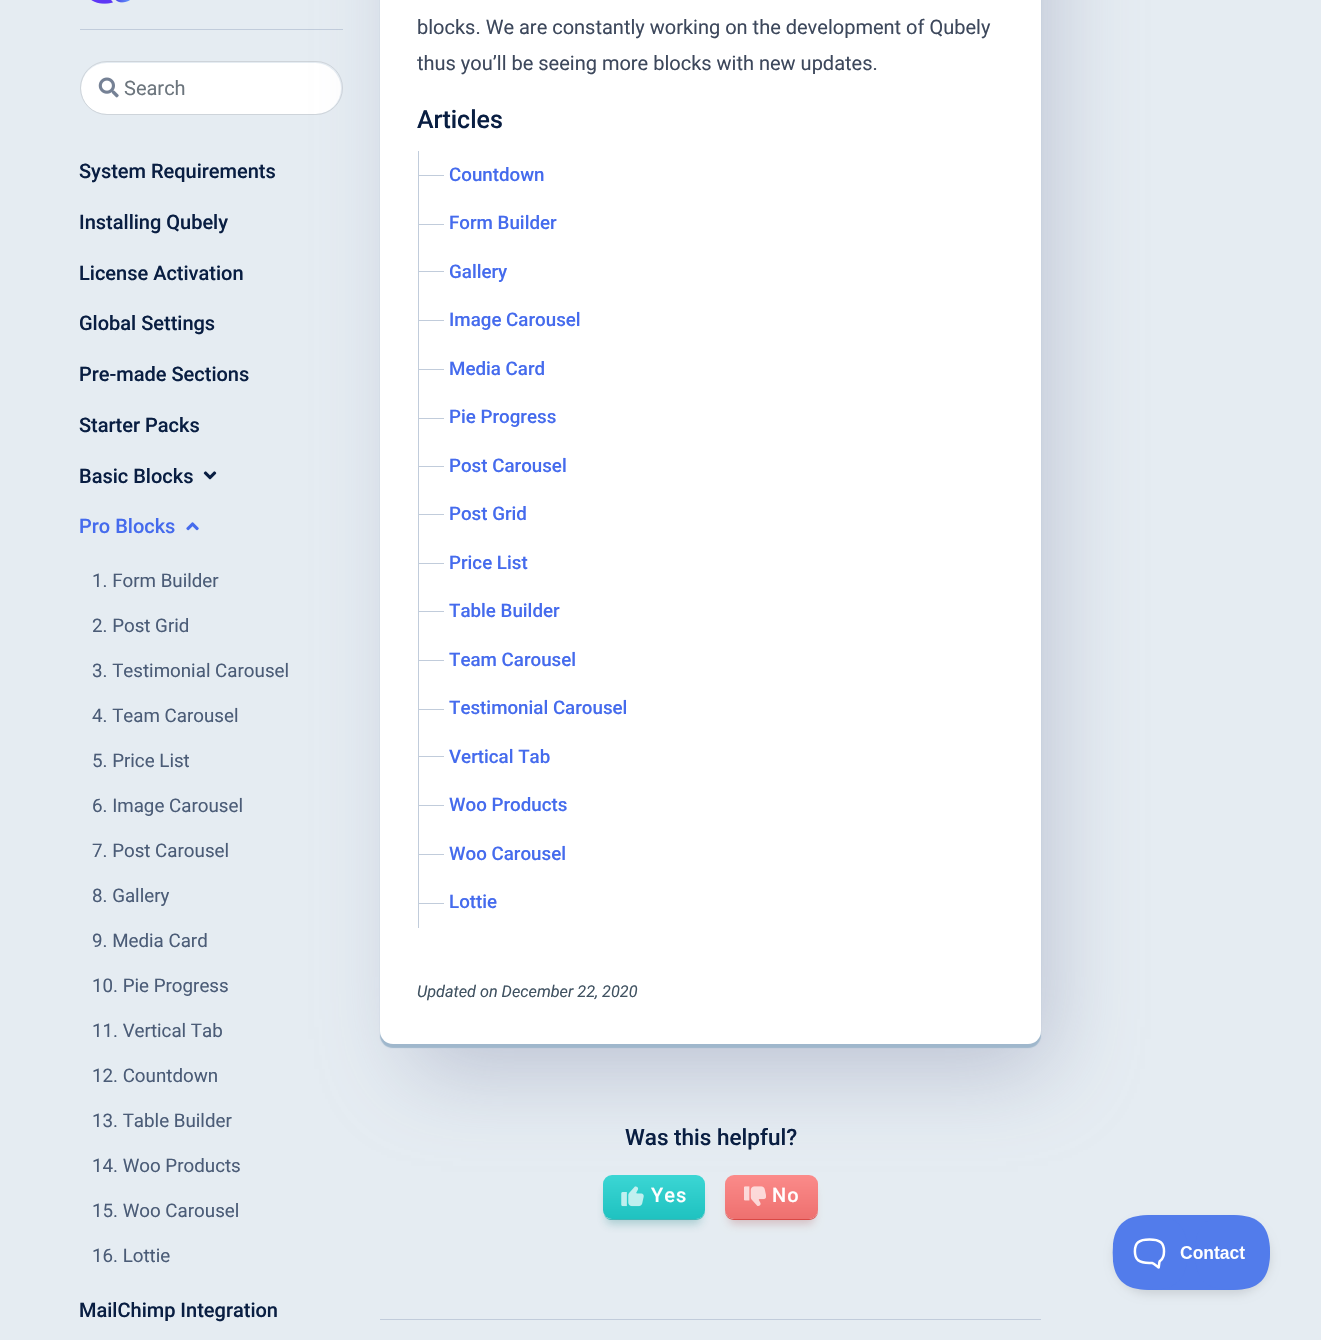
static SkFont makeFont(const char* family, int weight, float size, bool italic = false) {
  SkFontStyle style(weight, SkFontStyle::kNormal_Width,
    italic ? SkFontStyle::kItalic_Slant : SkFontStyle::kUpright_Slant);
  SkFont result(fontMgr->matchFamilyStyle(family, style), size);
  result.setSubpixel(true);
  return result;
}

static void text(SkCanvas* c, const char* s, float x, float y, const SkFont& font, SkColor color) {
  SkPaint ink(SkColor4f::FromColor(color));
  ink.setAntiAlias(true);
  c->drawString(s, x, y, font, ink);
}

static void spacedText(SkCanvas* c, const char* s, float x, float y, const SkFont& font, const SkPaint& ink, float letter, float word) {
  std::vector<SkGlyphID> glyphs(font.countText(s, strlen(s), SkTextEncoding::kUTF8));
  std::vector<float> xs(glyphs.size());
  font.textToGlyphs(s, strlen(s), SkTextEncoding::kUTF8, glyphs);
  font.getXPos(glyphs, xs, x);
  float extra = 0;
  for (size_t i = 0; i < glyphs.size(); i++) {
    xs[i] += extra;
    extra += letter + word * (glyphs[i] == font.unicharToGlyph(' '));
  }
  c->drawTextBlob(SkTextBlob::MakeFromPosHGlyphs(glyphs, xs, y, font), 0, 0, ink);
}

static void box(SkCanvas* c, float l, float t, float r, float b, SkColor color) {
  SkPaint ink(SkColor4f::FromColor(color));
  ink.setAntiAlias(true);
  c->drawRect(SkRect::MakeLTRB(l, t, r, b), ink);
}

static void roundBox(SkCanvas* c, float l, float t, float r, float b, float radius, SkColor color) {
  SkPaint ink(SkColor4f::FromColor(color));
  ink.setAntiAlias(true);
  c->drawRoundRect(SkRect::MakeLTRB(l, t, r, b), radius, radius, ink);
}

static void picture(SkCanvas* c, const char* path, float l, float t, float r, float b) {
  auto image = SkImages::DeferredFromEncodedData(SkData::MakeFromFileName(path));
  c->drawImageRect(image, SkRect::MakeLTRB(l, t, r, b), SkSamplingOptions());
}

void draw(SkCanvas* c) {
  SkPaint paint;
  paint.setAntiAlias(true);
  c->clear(0xffe5ecf2);
  box(c, 80, 29, 343, 30, 0xffc1ccdb);
  picture(c, "img_01.png", 91, 0, 130, 4);
  roundBox(c, 81, 63, 341, 114, 25.5f, 0xffffffff);
  paint.setStyle(SkPaint::kStroke_Style);
  paint.setStrokeWidth(1);
  paint.setColor(0xffced4da);
  c->drawRoundRect(SkRect::MakeLTRB(80.5f, 61.5f, 342.5f, 114.5f), 26.5f, 26.5f, paint);
  picture(c, "img_02.png", 98, 77, 119, 98);
  SkFont face1 = makeFont("Roboto", 400, 20);
  text(c, "Search", 124, 95, face1, 0xff6c757d);
  SkFont face2 = makeFont("Roboto", 500, 20);
  text(c, "System Requirements", 79, 178, face2, 0xff091e42);
  text(c, "Installing Qubely", 79, 229, face2, 0xff091e42);
  text(c, "License Activation", 79, 280, face2, 0xff091e42);
  text(c, "Global Settings", 79, 330, face2, 0xff091e42);
  text(c, "Pre-made Sections", 79, 381, face2, 0xff091e42);
  text(c, "Starter Packs", 79, 432, face2, 0xff091e42);
  text(c, "Basic Blocks", 79, 483, face2, 0xff091e42);
  picture(c, "img_03.png", 203, 471, 217, 480);
  text(c, "Pro Blocks", 79, 533, face2, 0xff456bed);
  picture(c, "img_04.png", 186, 522, 199, 531);
  SkFont face3 = makeFont("Roboto", 400, 18.75f);
  text(c, "1. Form Builder", 92, 587, face3, 0xff4b5c77);
  text(c, "2. Post Grid", 92, 632, face3, 0xff4b5c77);
  text(c, "3. Testimonial Carousel", 92, 677, face3, 0xff4b5c77);
  text(c, "4. Team Carousel", 92, 722, face3, 0xff4b5c77);
  text(c, "5. Price List", 92, 767, face3, 0xff4b5c77);
  text(c, "6. Image Carousel", 92, 812, face3, 0xff4b5c77);
  text(c, "7. Post Carousel", 92, 857, face3, 0xff4b5c77);
  text(c, "8. Gallery", 92, 902, face3, 0xff4b5c77);
  text(c, "9. Media Card", 92, 947, face3, 0xff4b5c77);
  text(c, "10. Pie Progress", 92, 992, face3, 0xff4b5c77);
  text(c, "11. Vertical Tab", 92, 1037, face3, 0xff4b5c77);
  text(c, "12. Countdown", 92, 1082, face3, 0xff4b5c77);
  text(c, "13. Table Builder", 92, 1127, face3, 0xff4b5c77);
  text(c, "14. Woo Products", 92, 1172, face3, 0xff4b5c77);
  text(c, "15. Woo Carousel", 92, 1217, face3, 0xff4b5c77);
  text(c, "16. Lottie", 92, 1262, face3, 0xff4b5c77);
  text(c, "MailChimp Integration", 79, 1317, face2, 0xff091e42);
  paint.setStyle(SkPaint::kFill_Style);
  paint.setColor(0x8f9ca0b9);
  paint.setMaskFilter(SkMaskFilter::MakeBlur(kNormal_SkBlurStyle, 42.5f));
  c->drawRect(SkRect::MakeLTRB(411, -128, 1048, 1069), paint);
  paint.setMaskFilter(nullptr);
  paint.setColor(0xff9fb7cc);
  paint.setMaskFilter(SkMaskFilter::MakeBlur(kNormal_SkBlurStyle, 0.5f));
  c->drawRoundRect(SkRect::MakeLTRB(380, -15, 1041, 1048), 13, 13, paint);
  paint.setMaskFilter(nullptr);
  roundBox(c, 380, -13, 1041, 1044, 13, 0xffffffff);
  text(c, "blocks. We are constantly working on the development of Qubely", 417, 34, face1, 0xff3d485c);
  text(c, "thus you’ll be seeing more blocks with new updates.", 417, 70, face1, 0xff3d485c);
  SkFont face4 = makeFont("Roboto", 500, 25);
  text(c, "Articles", 417, 128, face4, 0xff091e42);
  box(c, 418, 151, 419, 928, 0xffc1ccdb);
  box(c, 419, 175, 444, 176, 0xffc1ccdb);
  SkFont face5 = makeFont("Roboto", 500, 18.75f);
  text(c, "Countdown", 449, 181, face5, 0xff456bed);
  box(c, 419, 224, 444, 225, 0xffc1ccdb);
  text(c, "Form Builder", 449, 229, face5, 0xff456bed);
  box(c, 419, 271, 444, 272, 0xffc1ccdb);
  text(c, "Gallery", 449, 278, face5, 0xff456bed);
  box(c, 419, 320, 444, 321, 0xffc1ccdb);
  text(c, "Image Carousel", 449, 326, face5, 0xff456bed);
  box(c, 419, 369, 444, 370, 0xffc1ccdb);
  text(c, "Media Card", 449, 375, face5, 0xff456bed);
  box(c, 419, 418, 444, 419, 0xffc1ccdb);
  text(c, "Pie Progress", 449, 423, face5, 0xff456bed);
  box(c, 419, 466, 444, 467, 0xffc1ccdb);
  text(c, "Post Carousel", 449, 472, face5, 0xff456bed);
  box(c, 419, 514, 444, 515, 0xffc1ccdb);
  text(c, "Post Grid", 449, 520, face5, 0xff456bed);
  box(c, 419, 563, 444, 564, 0xffc1ccdb);
  text(c, "Price List", 449, 569, face5, 0xff456bed);
  box(c, 419, 611, 444, 612, 0xffc1ccdb);
  text(c, "Table Builder", 449, 617, face5, 0xff456bed);
  box(c, 419, 660, 444, 661, 0xffc1ccdb);
  text(c, "Team Carousel", 449, 666, face5, 0xff456bed);
  box(c, 419, 709, 444, 710, 0xffc1ccdb);
  text(c, "Testimonial Carousel", 449, 714, face5, 0xff456bed);
  box(c, 419, 756, 444, 757, 0xffc1ccdb);
  text(c, "Vertical Tab", 449, 763, face5, 0xff456bed);
  box(c, 419, 805, 444, 806, 0xffc1ccdb);
  text(c, "Woo Products", 449, 811, face5, 0xff456bed);
  box(c, 419, 854, 444, 855, 0xffc1ccdb);
  text(c, "Woo Carousel", 449, 860, face5, 0xff456bed);
  box(c, 419, 903, 444, 904, 0xffc1ccdb);
  text(c, "Lottie", 449, 908, face5, 0xff456bed);
  SkFont face6 = makeFont("Roboto", 400, 16.25f, true);
  text(c, "Updated on December 22, 2020", 417, 997, face6, 0xff405261);
  SkFont face7 = makeFont("Roboto", 500, 22.5f);
  text(c, "Was this helpful?", 625, 1145, face7, 0xff091e42);
  paint.setColor(0xff4ac7c5);
  c->drawPath(SkPathBuilder().moveTo(604, 1214).cubicTo(605, 1218, 608, 1220, 612, 1220).lineTo(696, 1220).cubicTo(701, 1220, 705, 1216, 705, 1211).lineTo(705, 1210).cubicTo(705, 1215, 701, 1219, 696, 1219).lineTo(611, 1219).cubicTo(608, 1219, 605, 1217, 604, 1214).close().detach(), paint);
  paint.setColor(0x4d1a8684);
  paint.setMaskFilter(SkMaskFilter::MakeBlur(kNormal_SkBlurStyle, 5));
  c->drawRoundRect(SkRect::MakeLTRB(606, 1188, 701, 1224), 5, 5, paint);
  paint.setMaskFilter(nullptr);
  {
    const SkColor colors[] = {0xff1fc2c0, 0xff3bd6d4};
    const float stops[] = {0, 1};
    const SkPoint ends[] = {{654, 1219}, {654, 1175}};
    paint.setShader(SkGradientShader::MakeLinear(ends, colors, stops, 2, SkTileMode::kClamp));
    paint.setAlpha(255);
  }
  c->drawRoundRect(SkRect::MakeLTRB(603, 1175, 705, 1219), 9, 9, paint);
  picture(c, "img_05.png", 621, 1186, 644, 1207);
  paint.setShader(nullptr);
  paint.setColor(0xffffffff);
  spacedText(c, "Yes", 651, 1202, face2, paint, 1, 0);
  paint.setColor(0xffe75553);
  c->drawPath(SkPathBuilder().moveTo(725, 1210).lineTo(725, 1211).cubicTo(725, 1216, 729, 1220, 734, 1220).lineTo(809, 1220).cubicTo(814, 1220, 818, 1216, 818, 1211).lineTo(818, 1185).lineTo(817, 1181).lineTo(818, 1184).lineTo(818, 1210).cubicTo(818, 1215, 814, 1219, 809, 1219).lineTo(734, 1219).cubicTo(729, 1219, 725, 1215, 725, 1210).close().detach(), paint);
  paint.setColor(0x338f0400);
  paint.setMaskFilter(SkMaskFilter::MakeBlur(kNormal_SkBlurStyle, 5));
  c->drawRoundRect(SkRect::MakeLTRB(729, 1188, 814, 1224), 5, 5, paint);
  paint.setMaskFilter(nullptr);
  {
    const SkColor colors[] = {0xffee706f, 0xfffb8b8a};
    const float stops[] = {0, 1};
    const SkPoint ends[] = {{771, 1219}, {771, 1175}};
    paint.setShader(SkGradientShader::MakeLinear(ends, colors, stops, 2, SkTileMode::kClamp));
    paint.setAlpha(255);
  }
  c->drawRoundRect(SkRect::MakeLTRB(725, 1175, 818, 1219), 9, 9, paint);
  picture(c, "img_06.png", 744, 1186, 766, 1206);
  paint.setShader(nullptr);
  paint.setColor(0xffffffff);
  spacedText(c, "No", 772, 1202, face2, paint, 1, 0);
  box(c, 380, 1319, 1041, 1320, 0xffc1ccdb);
  paint.setColor(0x1a000000);
  paint.setMaskFilter(SkMaskFilter::MakeBlur(kNormal_SkBlurStyle, 4.5f));
  c->drawRoundRect(SkRect::MakeLTRB(1113, 1220, 1271, 1295), 37.5f, 37.5f, paint);
  paint.setMaskFilter(nullptr);
  picture(c, "img_07.png", 1112, 1215, 1270, 1290);
}
